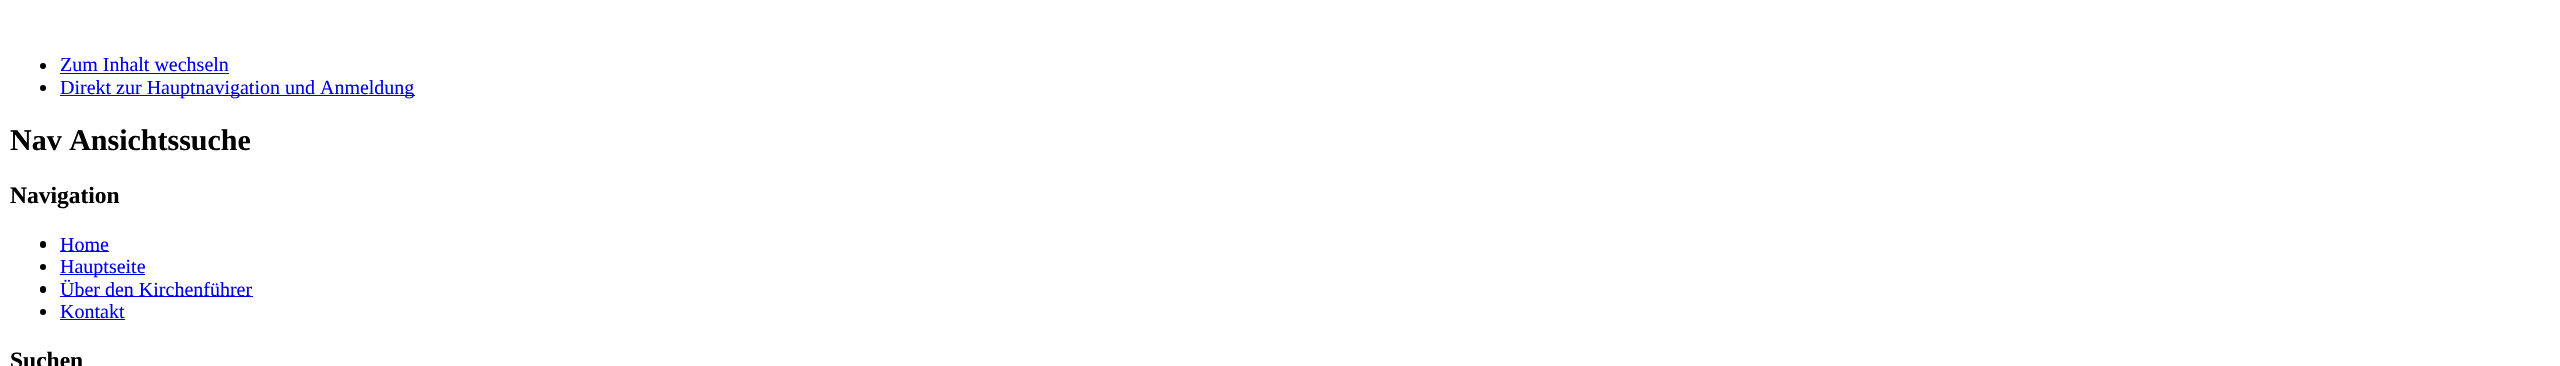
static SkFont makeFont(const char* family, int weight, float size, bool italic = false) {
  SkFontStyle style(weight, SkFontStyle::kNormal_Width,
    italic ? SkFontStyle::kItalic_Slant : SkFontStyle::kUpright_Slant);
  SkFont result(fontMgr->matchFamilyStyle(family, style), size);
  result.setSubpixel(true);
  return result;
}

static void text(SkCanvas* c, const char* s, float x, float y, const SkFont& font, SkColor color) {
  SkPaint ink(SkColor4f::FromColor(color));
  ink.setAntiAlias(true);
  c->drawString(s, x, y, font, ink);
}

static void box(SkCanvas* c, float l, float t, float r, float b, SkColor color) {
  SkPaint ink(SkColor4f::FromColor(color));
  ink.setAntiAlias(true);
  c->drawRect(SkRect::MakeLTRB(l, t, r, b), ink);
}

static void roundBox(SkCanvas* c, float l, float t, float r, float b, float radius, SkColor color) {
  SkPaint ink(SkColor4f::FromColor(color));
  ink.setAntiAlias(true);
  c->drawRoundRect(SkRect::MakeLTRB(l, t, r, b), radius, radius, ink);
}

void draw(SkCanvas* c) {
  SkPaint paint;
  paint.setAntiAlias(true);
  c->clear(0xffffffff);
  paint.setColor(0xff000000);
  c->drawCircle(43, 66, 3, paint);
  SkFont face1 = makeFont("Liberation Serif", 400, 20);
  text(c, "Zum Inhalt wechseln", 60, 71, face1, 0xff0000ee);
  box(c, 60, 73, 229, 74, 0xff0000ee);
  c->drawCircle(43, 88, 3, paint);
  box(c, 60, 95, 415, 96, 0xff0000ee);
  text(c, "Direkt zur Hauptnavigation und Anmeldung", 60, 94, face1, 0xff0000ee);
  SkFont face2 = makeFont("Liberation Serif", 700, 30);
  text(c, "Nav Ansichtssuche", 10, 150, face2, 0xff000000);
  SkFont face3 = makeFont("Liberation Serif", 700, 23.5f);
  text(c, "Navigation", 10, 203, face3, 0xff000000);
  roundBox(c, 40, 241, 46, 248, 3, 0xff000000);
  box(c, 60, 251, 109, 252, 0xff0000ee);
  text(c, "Home", 60, 251, face1, 0xff0000ee);
  c->drawCircle(43, 267, 3, paint);
  box(c, 60, 274, 145, 275, 0xff0000ee);
  text(c, "Hauptseite", 60, 273, face1, 0xff0000ee);
  roundBox(c, 40, 286, 46, 293, 3, 0xff000000);
  box(c, 60, 296, 253, 297, 0xff0000ee);
  text(c, "Über den Kirchenführer", 60, 296, face1, 0xff0000ee);
  c->drawCircle(43, 312, 3, paint);
  text(c, "Kontakt", 60, 318, face1, 0xff0000ee);
  box(c, 60, 319, 125, 320, 0xff0000ee);
  text(c, "Suchen", 10, 368, face3, 0xff000000);
}
